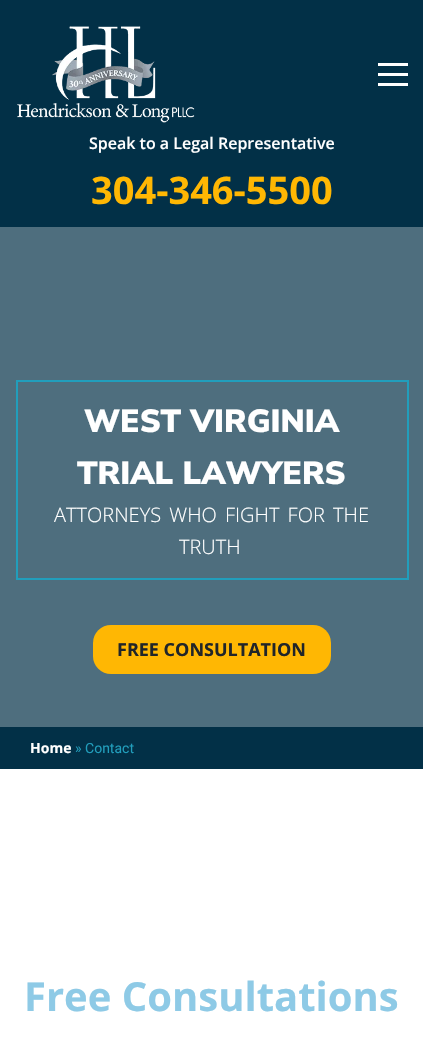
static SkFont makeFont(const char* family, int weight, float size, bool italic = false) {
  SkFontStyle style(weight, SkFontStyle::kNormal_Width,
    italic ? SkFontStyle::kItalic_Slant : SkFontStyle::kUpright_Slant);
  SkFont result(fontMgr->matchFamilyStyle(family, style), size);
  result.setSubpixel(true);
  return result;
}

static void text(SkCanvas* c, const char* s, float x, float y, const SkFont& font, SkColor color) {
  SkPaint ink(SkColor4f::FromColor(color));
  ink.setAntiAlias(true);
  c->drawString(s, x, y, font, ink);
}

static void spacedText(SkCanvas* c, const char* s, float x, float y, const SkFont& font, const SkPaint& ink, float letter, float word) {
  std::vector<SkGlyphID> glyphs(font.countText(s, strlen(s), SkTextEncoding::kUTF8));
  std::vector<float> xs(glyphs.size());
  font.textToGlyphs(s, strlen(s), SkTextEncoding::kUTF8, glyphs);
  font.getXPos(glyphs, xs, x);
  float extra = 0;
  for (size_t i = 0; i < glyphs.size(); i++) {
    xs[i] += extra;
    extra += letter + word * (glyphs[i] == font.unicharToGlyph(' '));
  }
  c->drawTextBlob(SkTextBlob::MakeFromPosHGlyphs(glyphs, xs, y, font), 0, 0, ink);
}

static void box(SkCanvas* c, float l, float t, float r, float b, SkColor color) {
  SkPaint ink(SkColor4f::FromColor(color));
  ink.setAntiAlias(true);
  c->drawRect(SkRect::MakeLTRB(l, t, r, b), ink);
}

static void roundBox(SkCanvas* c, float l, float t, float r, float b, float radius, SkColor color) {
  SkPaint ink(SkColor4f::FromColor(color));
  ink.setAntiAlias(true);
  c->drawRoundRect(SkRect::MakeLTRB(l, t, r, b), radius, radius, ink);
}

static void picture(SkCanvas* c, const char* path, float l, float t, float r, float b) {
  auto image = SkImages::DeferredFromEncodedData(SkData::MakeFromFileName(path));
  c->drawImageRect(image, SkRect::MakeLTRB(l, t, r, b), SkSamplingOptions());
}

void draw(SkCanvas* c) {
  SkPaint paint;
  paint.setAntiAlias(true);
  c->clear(0xffffffff);
  box(c, 0, 0, 423, 227, 0xff023047);
  picture(c, "img_01.png", 17, 26, 195, 123);
  box(c, 378, 63, 408, 66, 0xffffffff);
  box(c, 378, 73, 408, 76, 0xffffffff);
  box(c, 378, 83, 408, 86, 0xffffffff);
  SkFont face1 = makeFont("Open Sans", 600, 16);
  text(c, "Speak to a Legal Representative", 89, 149, face1, 0xffffffff);
  SkFont face2 = makeFont("Open Sans", 700, 38);
  text(c, "304-346-5500", 91, 204, face2, 0xffffb703);
  box(c, 0, 227, 423, 727, 0xff4e6e7e);
  paint.setStyle(SkPaint::kStroke_Style);
  paint.setStrokeWidth(2);
  paint.setColor(0xff219ebc);
  c->drawRect(SkRect::MakeLTRB(17, 381, 408, 579), paint);
  SkFont face3 = makeFont("Nunito Sans", 900, 32);
  text(c, "WEST VIRGINIA", 84, 432, face3, 0xffffffff);
  text(c, "TRIAL LAWYERS", 77, 484, face3, 0xffffffff);
  SkFont face4 = makeFont("Open Sans", 300, 20);
  paint.setStyle(SkPaint::kFill_Style);
  paint.setColor(0xffffffff);
  spacedText(c, "ATTORNEYS WHO FIGHT FOR THE", 54, 522, face4, paint, 0, 3);
  text(c, "TRUTH", 179, 554, face4, 0xffffffff);
  roundBox(c, 93, 625, 331, 674, 18, 0xffffb703);
  SkFont face5 = makeFont("Open Sans", 700, 18);
  text(c, "FREE CONSULTATION", 117, 656, face5, 0xff212529);
  box(c, 0, 727, 423, 769, 0xff023047);
  SkFont face6 = makeFont("Open Sans", 700, 14);
  text(c, "Home", 30, 753, face6, 0xffffffff);
  SkFont face7 = makeFont("Roboto", 400, 14);
  text(c, "» Contact", 75, 753, face7, 0xff219ebc);
  SkFont face8 = makeFont("Open Sans", 700, 40);
  text(c, "Free Consultations", 24, 1011, face8, 0xff8ecae6);
}
